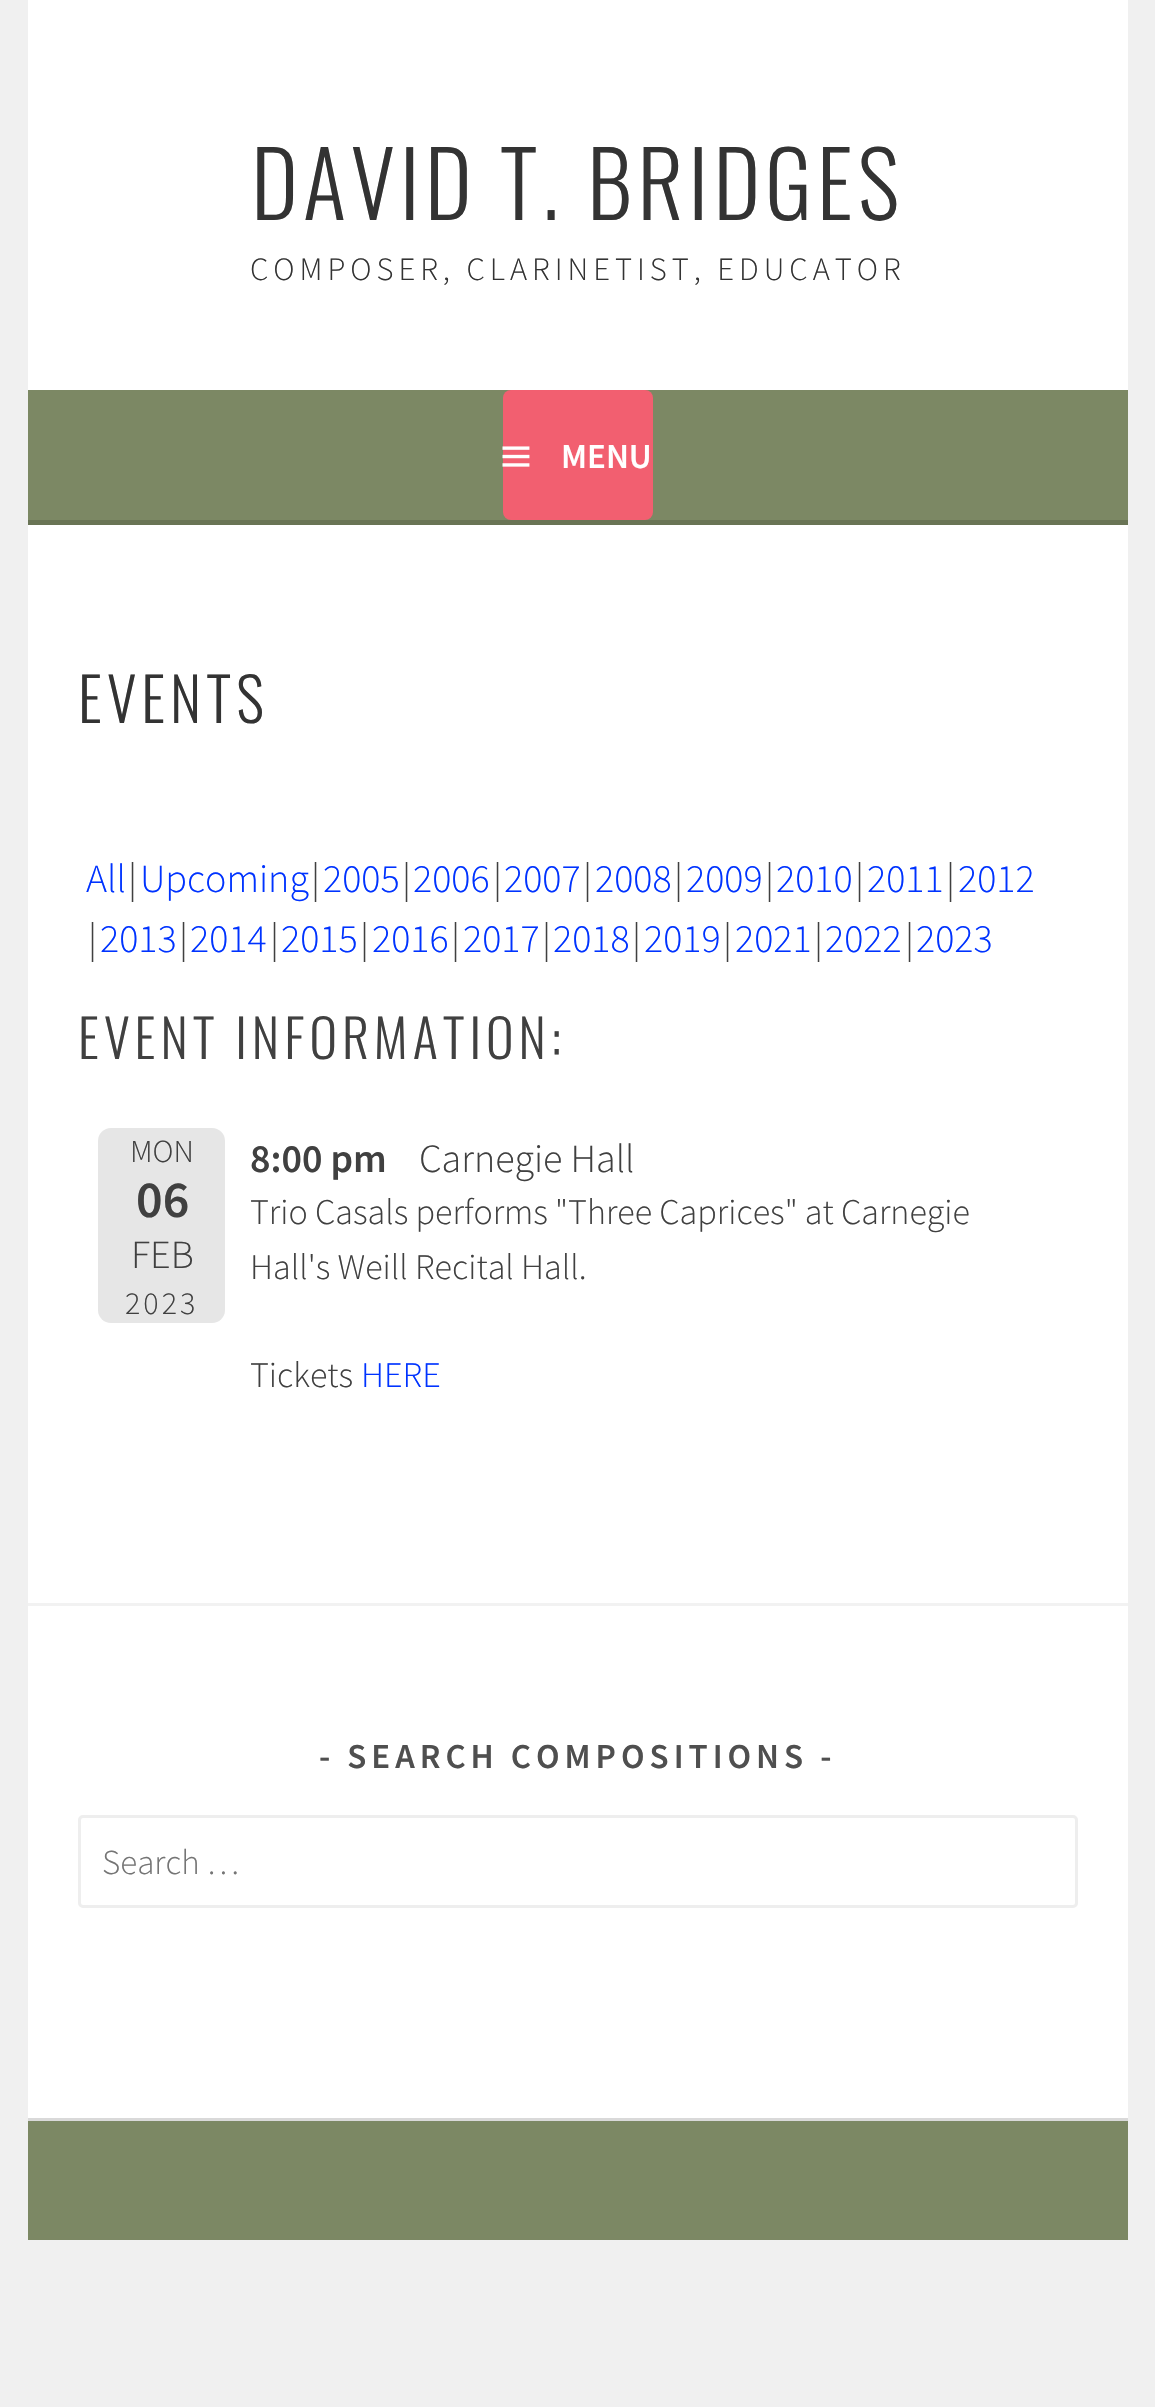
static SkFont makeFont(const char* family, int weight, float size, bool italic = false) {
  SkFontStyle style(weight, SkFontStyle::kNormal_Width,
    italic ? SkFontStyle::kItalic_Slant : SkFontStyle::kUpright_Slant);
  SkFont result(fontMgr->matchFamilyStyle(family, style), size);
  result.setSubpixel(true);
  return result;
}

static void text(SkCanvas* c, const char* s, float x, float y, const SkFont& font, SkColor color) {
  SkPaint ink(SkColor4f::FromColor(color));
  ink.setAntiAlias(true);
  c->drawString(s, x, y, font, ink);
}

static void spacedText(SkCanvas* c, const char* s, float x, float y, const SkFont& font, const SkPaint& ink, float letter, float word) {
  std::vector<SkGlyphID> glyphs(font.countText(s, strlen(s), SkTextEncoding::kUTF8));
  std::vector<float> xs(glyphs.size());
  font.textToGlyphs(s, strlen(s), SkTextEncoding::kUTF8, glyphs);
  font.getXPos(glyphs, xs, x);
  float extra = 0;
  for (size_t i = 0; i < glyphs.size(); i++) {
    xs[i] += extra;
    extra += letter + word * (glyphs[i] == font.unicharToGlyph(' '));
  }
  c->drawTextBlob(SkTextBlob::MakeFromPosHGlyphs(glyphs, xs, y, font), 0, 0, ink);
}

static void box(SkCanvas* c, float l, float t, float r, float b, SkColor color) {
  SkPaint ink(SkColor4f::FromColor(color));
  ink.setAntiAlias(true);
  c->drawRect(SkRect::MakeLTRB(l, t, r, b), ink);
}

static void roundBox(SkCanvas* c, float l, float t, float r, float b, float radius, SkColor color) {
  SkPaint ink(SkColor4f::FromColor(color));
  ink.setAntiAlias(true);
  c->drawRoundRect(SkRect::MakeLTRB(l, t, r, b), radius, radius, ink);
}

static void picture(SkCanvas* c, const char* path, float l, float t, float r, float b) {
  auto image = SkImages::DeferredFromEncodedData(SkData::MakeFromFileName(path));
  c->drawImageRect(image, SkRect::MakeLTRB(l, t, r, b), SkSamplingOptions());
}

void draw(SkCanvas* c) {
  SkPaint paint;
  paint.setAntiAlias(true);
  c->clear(0xfff0f0f0);
  box(c, 28, 0, 1128, 390, 0xffffffff);
  SkFont face1 = makeFont("Oswald", 300, 90);
  paint.setColor(0xff333333);
  spacedText(c, "DAVID T. BRIDGES", 251, 220, face1, paint, 5, 0);
  SkFont face2 = makeFont("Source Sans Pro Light", 300, 32.5f);
  spacedText(c, "COMPOSER, CLARINETIST, EDUCATOR", 250, 280, face2, paint, 5, 0);
  box(c, 28, 390, 1128, 520, 0xff7c8864);
  box(c, 28, 520, 1128, 525, 0xff697455);
  roundBox(c, 503, 390, 653, 520, 8, 0xfff25f70);
  picture(c, "img_01.png", 502, 446, 530, 467);
  SkFont face3 = makeFont("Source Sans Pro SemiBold", 600, 35);
  text(c, "MENU", 561, 468, face3, 0xffffffff);
  box(c, 28, 525, 1128, 2118, 0xffffffff);
  SkFont face4 = makeFont("Oswald", 300, 60);
  spacedText(c, "EVENTS", 78, 723, face4, paint, 5, 0);
  SkFont face5 = makeFont("Source Sans Pro Light", 300, 40);
  text(c, "All", 86, 892, face5, 0xff0033ff);
  text(c, "|", 128, 892, face5, 0xff404040);
  text(c, "Upcoming", 140, 892, face5, 0xff0033ff);
  text(c, "|", 311, 892, face5, 0xff404040);
  text(c, "2005", 323, 892, face5, 0xff0033ff);
  text(c, "|", 402, 892, face5, 0xff404040);
  text(c, "2006", 413, 892, face5, 0xff0033ff);
  text(c, "|", 493, 892, face5, 0xff404040);
  text(c, "2007", 504, 892, face5, 0xff0033ff);
  text(c, "|", 583, 892, face5, 0xff404040);
  text(c, "2008", 595, 892, face5, 0xff0033ff);
  text(c, "|", 674, 892, face5, 0xff404040);
  text(c, "2009", 686, 892, face5, 0xff0033ff);
  text(c, "|", 765, 892, face5, 0xff404040);
  text(c, "2010", 776, 892, face5, 0xff0033ff);
  text(c, "|", 855, 892, face5, 0xff404040);
  text(c, "2011", 867, 892, face5, 0xff0033ff);
  text(c, "|", 946, 892, face5, 0xff404040);
  text(c, "2012", 958, 892, face5, 0xff0033ff);
  text(c, "|", 88, 952, face5, 0xff404040);
  text(c, "2013", 100, 952, face5, 0xff0033ff);
  text(c, "|", 179, 952, face5, 0xff404040);
  text(c, "2014", 190, 952, face5, 0xff0033ff);
  text(c, "|", 270, 952, face5, 0xff404040);
  text(c, "2015", 281, 952, face5, 0xff0033ff);
  text(c, "|", 360, 952, face5, 0xff404040);
  text(c, "2016", 372, 952, face5, 0xff0033ff);
  text(c, "|", 451, 952, face5, 0xff404040);
  text(c, "2017", 463, 952, face5, 0xff0033ff);
  text(c, "|", 542, 952, face5, 0xff404040);
  text(c, "2018", 553, 952, face5, 0xff0033ff);
  text(c, "|", 632, 952, face5, 0xff404040);
  text(c, "2019", 644, 952, face5, 0xff0033ff);
  text(c, "|", 723, 952, face5, 0xff404040);
  text(c, "2021", 735, 952, face5, 0xff0033ff);
  text(c, "|", 814, 952, face5, 0xff404040);
  text(c, "2022", 825, 952, face5, 0xff0033ff);
  text(c, "|", 905, 952, face5, 0xff404040);
  text(c, "2023", 916, 952, face5, 0xff0033ff);
  SkFont face6 = makeFont("Oswald", 300, 52.5f);
  paint.setColor(0xff404040);
  spacedText(c, "EVENT INFORMATION:", 78, 1059, face6, paint, 5, 0);
  roundBox(c, 98, 1128, 225, 1323, 13, 0xffe6e6e6);
  SkFont face7 = makeFont("Source Sans Pro Light", 300, 32);
  text(c, "MON", 130, 1162, face7, 0xff404040);
  SkFont face8 = makeFont("Source Sans Pro SemiBold", 600, 52);
  text(c, "06", 136, 1217, face8, 0xff404040);
  text(c, "FEB", 131, 1268, face5, 0xff404040);
  spacedText(c, "2023", 125, 1314, face7, paint, 3, 0);
  SkFont face9 = makeFont("Source Sans Pro SemiBold", 600, 40);
  text(c, "8:00 pm", 250, 1172, face9, 0xff404040);
  text(c, "Carnegie Hall", 419, 1172, face5, 0xff404040);
  SkFont face10 = makeFont("Source Sans Pro Light", 300, 36);
  text(c, "Trio Casals performs \"Three Caprices\" at Carnegie", 250, 1224, face10, 0xff404040);
  text(c, "Hall's Weill Recital Hall.", 250, 1279, face10, 0xff404040);
  text(c, "Tickets", 250, 1387, face10, 0xff404040);
  text(c, "HERE", 361, 1387, face10, 0xff0033ff);
  box(c, 28, 1603, 1128, 1606, 0xfff2f2f2);
  paint.setColor(0xff4f4f4f);
  spacedText(c, "- SEARCH COMPOSITIONS -", 319, 1768, face3, paint, 5, 0);
  paint.setStyle(SkPaint::kStroke_Style);
  paint.setStrokeWidth(3);
  paint.setColor(0xffeeeeee);
  c->drawRoundRect(SkRect::MakeLTRB(79.5f, 1816.5f, 1076.5f, 1906.5f), 3.5f, 3.5f, paint);
  SkFont face11 = makeFont("Source Sans Pro Light", 300, 35);
  text(c, "Search …", 102, 1874, face11, 0xff757575);
  box(c, 28, 2121, 1128, 2240, 0xff7c8864);
  box(c, 28, 2118, 1128, 2121, 0xffd9d9d9);
}
